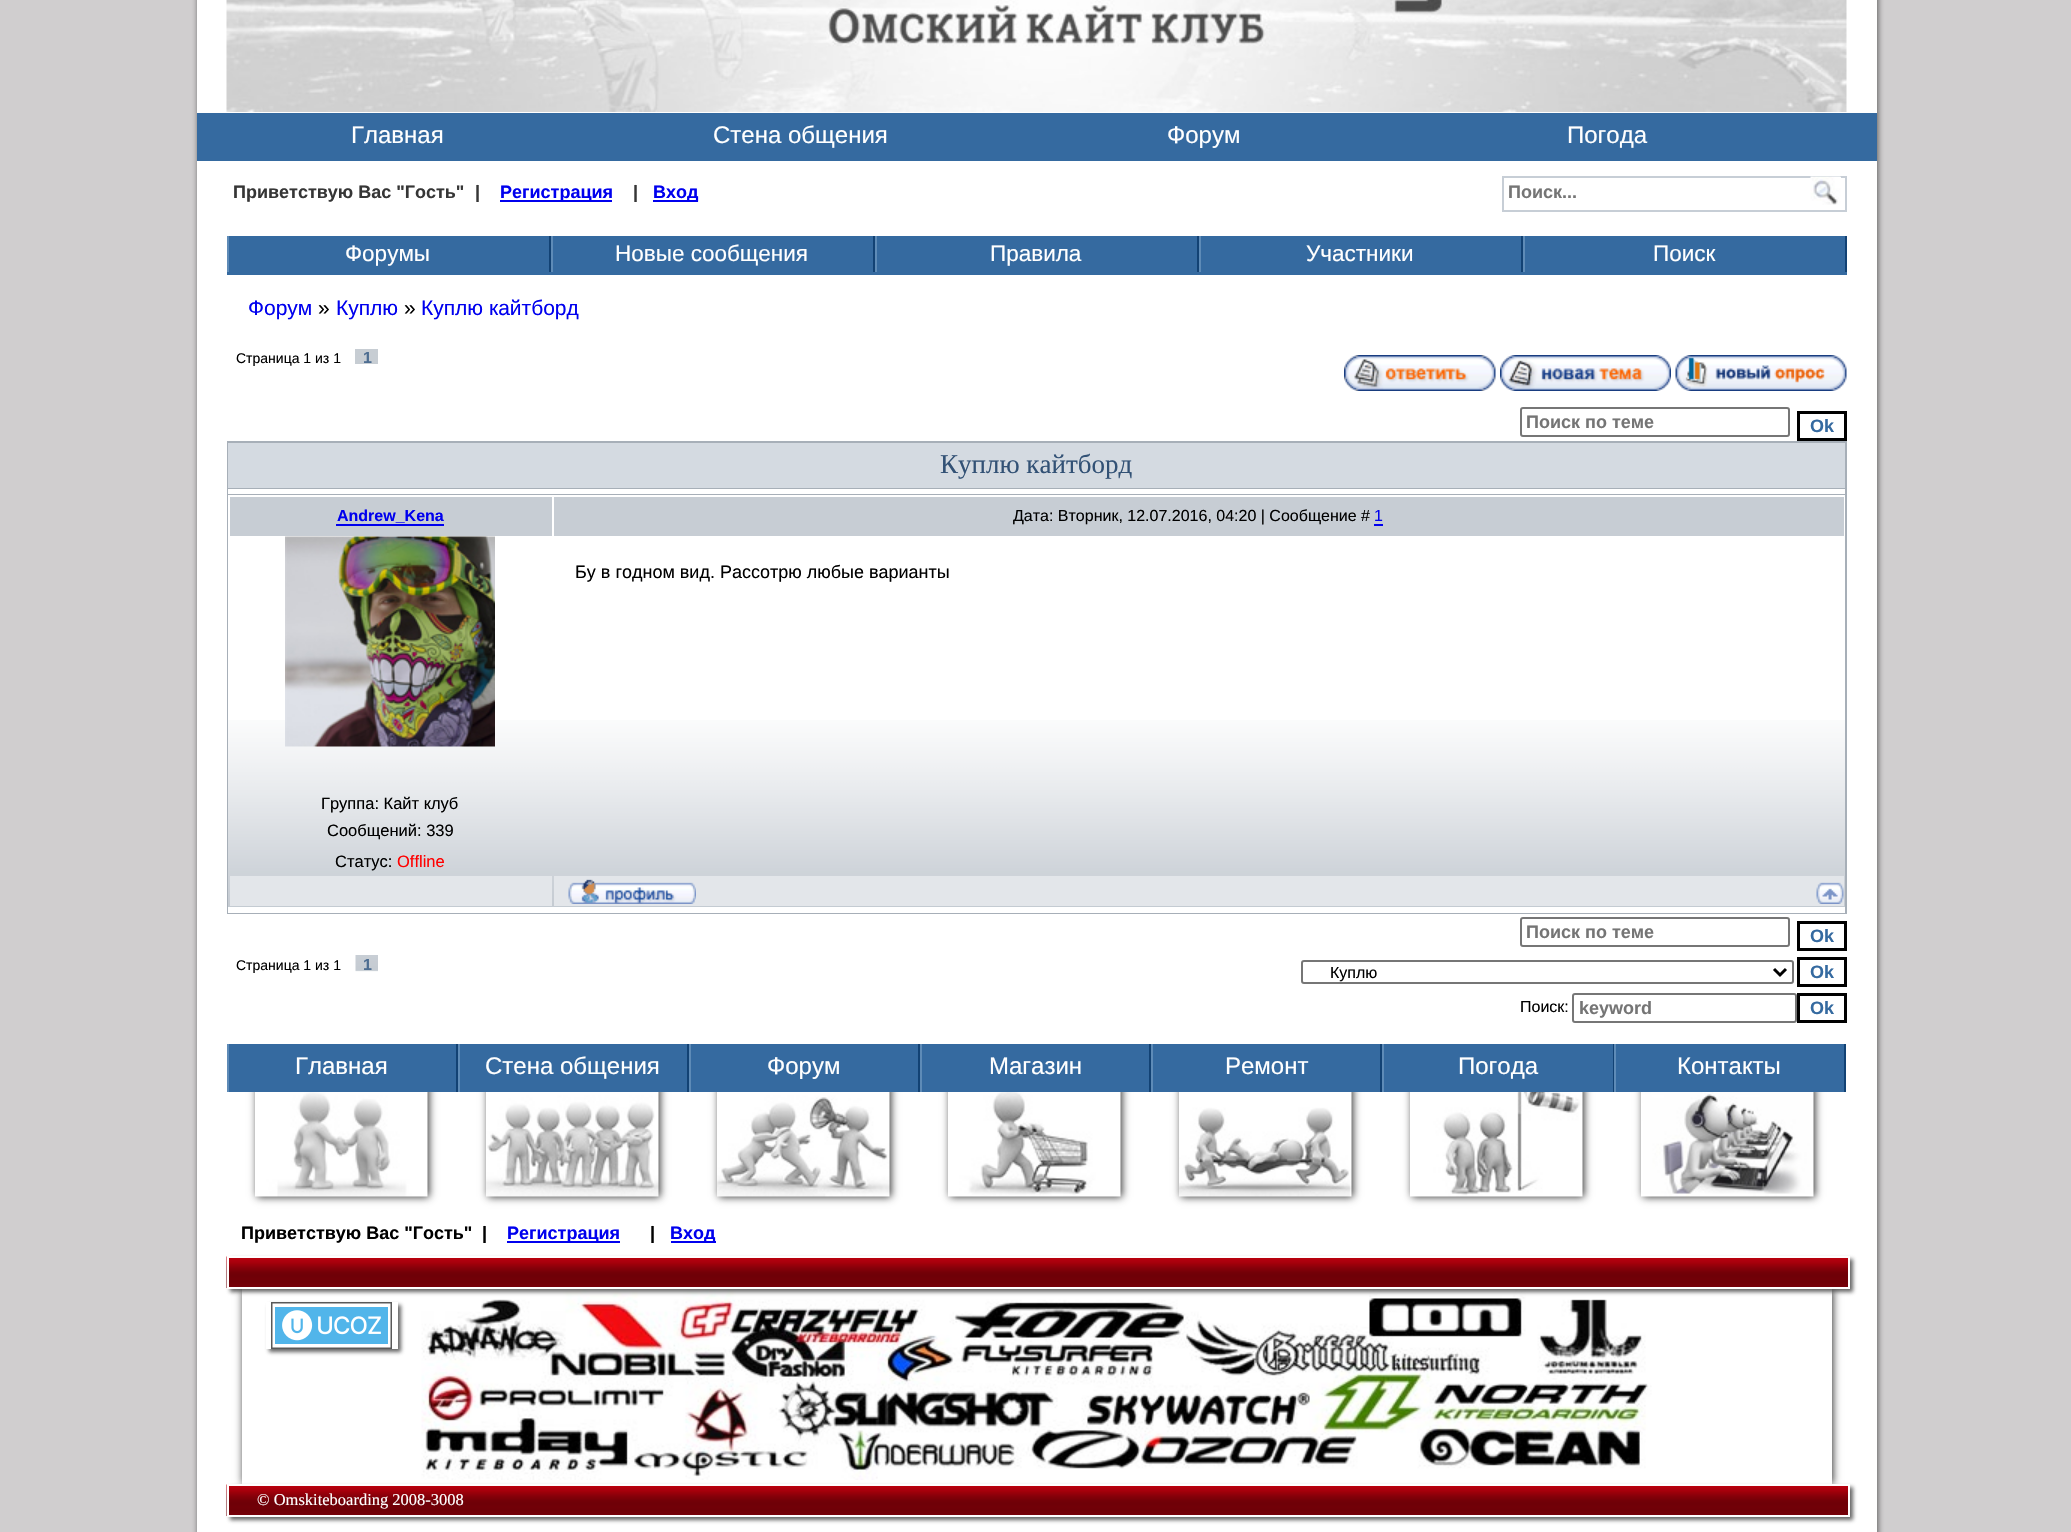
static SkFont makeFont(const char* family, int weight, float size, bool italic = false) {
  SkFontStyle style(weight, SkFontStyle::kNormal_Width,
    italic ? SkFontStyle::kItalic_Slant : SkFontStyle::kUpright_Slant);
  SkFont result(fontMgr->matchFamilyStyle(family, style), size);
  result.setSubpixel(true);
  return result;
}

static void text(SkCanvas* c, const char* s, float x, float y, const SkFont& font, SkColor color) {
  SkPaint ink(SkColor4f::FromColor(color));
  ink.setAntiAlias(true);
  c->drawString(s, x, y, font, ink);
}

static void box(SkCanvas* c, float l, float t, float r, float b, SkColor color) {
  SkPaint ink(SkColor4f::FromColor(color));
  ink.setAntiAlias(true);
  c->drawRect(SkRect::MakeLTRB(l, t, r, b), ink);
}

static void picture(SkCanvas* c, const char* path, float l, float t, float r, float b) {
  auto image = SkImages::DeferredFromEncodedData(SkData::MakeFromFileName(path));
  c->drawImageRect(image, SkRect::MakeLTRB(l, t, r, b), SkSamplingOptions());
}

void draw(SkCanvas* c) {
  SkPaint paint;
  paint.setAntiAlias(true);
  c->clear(0xffd0cecf);
  paint.setColor(0xbf323232);
  paint.setMaskFilter(SkMaskFilter::MakeBlur(kNormal_SkBlurStyle, 3));
  c->drawRect(SkRect::MakeLTRB(198, -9, 1878, 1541), paint);
  paint.setMaskFilter(nullptr);
  box(c, 197, 0, 1877, 1532, 0xffffffff);
  picture(c, "img_01.png", 226, 0, 1847, 112);
  box(c, 197, 113, 1877, 161, 0xff356aa0);
  SkFont face1 = makeFont("Liberation Sans", 400, 24);
  text(c, "Главная", 351, 143, face1, 0xffffffff);
  text(c, "Стена общения", 713, 143, face1, 0xffffffff);
  text(c, "Форум", 1167, 143, face1, 0xffffffff);
  text(c, "Погода", 1567, 143, face1, 0xffffffff);
  SkFont face2 = makeFont("Liberation Sans", 700, 18);
  text(c, "Приветствую Вас \"Гость\"", 233, 198, face2, 0xff363636);
  text(c, "|", 475, 198, face2, 0xff363636);
  box(c, 500, 200, 612, 202, 0xff0000ee);
  text(c, "Регистрация", 500, 198, face2, 0xff0000ee);
  text(c, "|", 633, 198, face2, 0xff363636);
  box(c, 653, 200, 698, 202, 0xff0000ee);
  text(c, "Вход", 653, 198, face2, 0xff0000ee);
  paint.setStyle(SkPaint::kStroke_Style);
  paint.setStrokeWidth(2);
  paint.setColor(0xffc7ced6);
  c->drawRect(SkRect::MakeLTRB(1503, 177, 1846, 211), paint);
  text(c, "Поиск...", 1508, 198, face2, 0xff757575);
  box(c, 1811, 177, 1841, 178, 0xffffffff);
  picture(c, "img_02.png", 1810, 176, 1841, 205);
  box(c, 227, 236, 1847, 275, 0xff356aa0);
  box(c, 549, 236, 551, 272, 0xff124274);
  box(c, 227, 236, 229, 272, 0xff5e8bb7);
  SkFont face3 = makeFont("Liberation Sans", 400, 22.5f);
  text(c, "Форумы", 345, 261, face3, 0xffffffff);
  box(c, 873, 236, 875, 272, 0xff124274);
  box(c, 551, 236, 553, 272, 0xff5e8bb7);
  text(c, "Новые сообщения", 615, 261, face3, 0xffffffff);
  box(c, 1197, 236, 1199, 272, 0xff124274);
  box(c, 875, 236, 877, 272, 0xff5e8bb7);
  text(c, "Правила", 990, 261, face3, 0xffffffff);
  box(c, 1521, 236, 1523, 272, 0xff124274);
  box(c, 1199, 236, 1201, 272, 0xff5e8bb7);
  text(c, "Участники", 1306, 261, face3, 0xffffffff);
  box(c, 1845, 236, 1847, 272, 0xff124274);
  box(c, 1523, 236, 1525, 272, 0xff5e8bb7);
  text(c, "Поиск", 1653, 261, face3, 0xffffffff);
  SkFont face4 = makeFont("Liberation Sans", 400, 21);
  text(c, "Форум", 248, 315, face4, 0xff0000ee);
  text(c, "»", 318, 315, face4, 0xff000000);
  text(c, "Куплю", 336, 315, face4, 0xff0000ee);
  text(c, "»", 404, 315, face4, 0xff000000);
  text(c, "Куплю кайтборд", 421, 315, face4, 0xff0000ee);
  SkFont face5 = makeFont("Liberation Sans", 400, 14);
  text(c, "Страница 1 из 1", 236, 363, face5, 0xff000000);
  box(c, 355, 349, 378, 364, 0xffc7cdd3);
  SkFont face6 = makeFont("Liberation Sans", 700, 16);
  text(c, "1", 363, 363, face6, 0xff4d6d91);
  picture(c, "img_03.png", 1344, 355, 1496, 391);
  picture(c, "img_04.png", 1500, 355, 1671, 391);
  picture(c, "img_05.png", 1675, 355, 1847, 391);
  paint.setColor(0xff767676);
  c->drawRoundRect(SkRect::MakeLTRB(1521, 408, 1789, 436), 2, 2, paint);
  text(c, "Поиск по теме", 1526, 428, face2, 0xff757575);
  paint.setStrokeWidth(3);
  paint.setColor(0xff000000);
  c->drawRect(SkRect::MakeLTRB(1798.5f, 412.5f, 1845.5f, 439.5f), paint);
  text(c, "Ok", 1810, 432, face2, 0xff356aa0);
  box(c, 227, 441, 1847, 914, 0xffa7afb8);
  box(c, 228, 443, 1845, 488, 0xffd4dae1);
  SkFont face7 = makeFont("Liberation Serif", 400, 27);
  text(c, "Куплю кайтборд", 940, 473, face7, 0xff325175);
  box(c, 228, 489, 1845, 494, 0xffffffff);
  box(c, 228, 495, 1845, 913, 0xffffffff);
  picture(c, "img_06.png", 228, 720, 1845, 907);
  box(c, 230, 497, 552, 536, 0xffc7cdd4);
  text(c, "Andrew_Kena", 337, 521, face6, 0xff0000ee);
  box(c, 336, 524, 444, 526, 0xff0000ee);
  box(c, 554, 497, 1844, 536, 0xffc7cdd4);
  SkFont face8 = makeFont("Liberation Sans", 400, 16);
  text(c, "Дата: Вторник, 12.07.2016, 04:20 | Сообщение #", 1013, 521, face8, 0xff000000);
  text(c, "1", 1374, 521, face8, 0xff0000ee);
  box(c, 1374, 524, 1383, 526, 0xff0000ee);
  SkFont face9 = makeFont("Liberation Sans", 400, 18);
  text(c, "Бу в годном вид. Рассотрю любые варианты", 575, 578, face9, 0xff000000);
  picture(c, "img_07.png", 285, 536, 495, 747);
  SkFont face10 = makeFont("Liberation Sans", 400, 16.5f);
  text(c, "Группа: Кайт клуб", 321, 809, face10, 0xff000000);
  text(c, "Сообщений: 339", 327, 836, face10, 0xff000000);
  text(c, "Статус:", 335, 867, face10, 0xff000000);
  text(c, "Offline", 397, 867, face10, 0xffff0000);
  box(c, 230, 876, 552, 906, 0xffe3e6ea);
  box(c, 554, 876, 1844, 906, 0xffe3e6ea);
  picture(c, "img_08.png", 568, 879, 696, 904);
  picture(c, "img_09.png", 1816, 882, 1844, 904);
  paint.setStrokeWidth(2);
  paint.setColor(0xff767676);
  c->drawRoundRect(SkRect::MakeLTRB(1521, 918, 1789, 946), 2, 2, paint);
  text(c, "Поиск по теме", 1526, 938, face2, 0xff757575);
  paint.setStrokeWidth(3);
  paint.setColor(0xff000000);
  c->drawRect(SkRect::MakeLTRB(1798.5f, 922.5f, 1845.5f, 949.5f), paint);
  text(c, "Ok", 1810, 942, face2, 0xff356aa0);
  text(c, "Страница 1 из 1", 236, 970, face5, 0xff000000);
  picture(c, "img_10.png", 355, 955, 378, 972);
  text(c, "1", 363, 970, face6, 0xff4d6d91);
  paint.setStrokeWidth(2);
  paint.setColor(0xff767676);
  c->drawRoundRect(SkRect::MakeLTRB(1302, 961, 1793, 983), 2, 2, paint);
  paint.setStrokeWidth(3);
  paint.setColor(0xff000000);
  c->drawPath(SkPathBuilder().moveTo(1774, 969).lineTo(1780, 975).lineTo(1786, 969).detach(), paint);
  text(c, "Куплю", 1330, 978, face8, 0xff000000);
  c->drawRect(SkRect::MakeLTRB(1798.5f, 958.5f, 1845.5f, 985.5f), paint);
  text(c, "Ok", 1810, 978, face2, 0xff356aa0);
  text(c, "Поиск:", 1520, 1012, face8, 0xff000000);
  paint.setStrokeWidth(2);
  paint.setColor(0xff767676);
  c->drawRoundRect(SkRect::MakeLTRB(1573, 994, 1796, 1022), 2, 2, paint);
  text(c, "keyword", 1579, 1014, face2, 0xff757575);
  paint.setStrokeWidth(3);
  paint.setColor(0xff000000);
  c->drawRect(SkRect::MakeLTRB(1798.5f, 994.5f, 1845.5f, 1021.5f), paint);
  text(c, "Ok", 1810, 1014, face2, 0xff356aa0);
  paint.setStyle(SkPaint::kFill_Style);
  paint.setColor(0xff323232);
  paint.setMaskFilter(SkMaskFilter::MakeBlur(kNormal_SkBlurStyle, 4));
  c->drawRect(SkRect::MakeLTRB(257, 1085, 429, 1197), paint);
  paint.setMaskFilter(nullptr);
  box(c, 229, 1044, 456, 1092, 0xff356aa0);
  box(c, 456, 1044, 458, 1092, 0xff124274);
  box(c, 227, 1044, 229, 1092, 0xff5e8bb7);
  text(c, "Главная", 295, 1074, face1, 0xffffffff);
  paint.setMaskFilter(SkMaskFilter::MakeBlur(kNormal_SkBlurStyle, 4));
  c->drawRect(SkRect::MakeLTRB(488, 1085, 660, 1197), paint);
  paint.setMaskFilter(nullptr);
  box(c, 460, 1044, 687, 1092, 0xff356aa0);
  box(c, 687, 1044, 689, 1092, 0xff124274);
  box(c, 458, 1044, 460, 1092, 0xff5e8bb7);
  text(c, "Стена общения", 485, 1074, face1, 0xffffffff);
  paint.setMaskFilter(SkMaskFilter::MakeBlur(kNormal_SkBlurStyle, 4));
  c->drawRect(SkRect::MakeLTRB(719, 1085, 891, 1197), paint);
  paint.setMaskFilter(nullptr);
  box(c, 691, 1044, 918, 1092, 0xff356aa0);
  box(c, 918, 1044, 920, 1092, 0xff124274);
  box(c, 689, 1044, 691, 1092, 0xff5e8bb7);
  text(c, "Форум", 767, 1074, face1, 0xffffffff);
  paint.setMaskFilter(SkMaskFilter::MakeBlur(kNormal_SkBlurStyle, 4));
  c->drawRect(SkRect::MakeLTRB(950, 1085, 1122, 1197), paint);
  paint.setMaskFilter(nullptr);
  box(c, 922, 1044, 1149, 1092, 0xff356aa0);
  box(c, 1149, 1044, 1151, 1092, 0xff124274);
  box(c, 920, 1044, 922, 1092, 0xff5e8bb7);
  text(c, "Магазин", 989, 1074, face1, 0xffffffff);
  paint.setMaskFilter(SkMaskFilter::MakeBlur(kNormal_SkBlurStyle, 4));
  c->drawRect(SkRect::MakeLTRB(1181, 1085, 1353, 1197), paint);
  paint.setMaskFilter(nullptr);
  box(c, 1153, 1044, 1380, 1092, 0xff356aa0);
  box(c, 1380, 1044, 1382, 1092, 0xff124274);
  box(c, 1151, 1044, 1153, 1092, 0xff5e8bb7);
  text(c, "Ремонт", 1225, 1074, face1, 0xffffffff);
  paint.setMaskFilter(SkMaskFilter::MakeBlur(kNormal_SkBlurStyle, 4));
  c->drawRect(SkRect::MakeLTRB(1412, 1085, 1584, 1197), paint);
  paint.setMaskFilter(nullptr);
  box(c, 1384, 1044, 1613, 1092, 0xff356aa0);
  box(c, 1613, 1044, 1614, 1092, 0xff124274);
  box(c, 1382, 1044, 1384, 1092, 0xff5e8bb7);
  text(c, "Погода", 1458, 1074, face1, 0xffffffff);
  paint.setMaskFilter(SkMaskFilter::MakeBlur(kNormal_SkBlurStyle, 4));
  c->drawRect(SkRect::MakeLTRB(1643, 1085, 1815, 1197), paint);
  paint.setMaskFilter(nullptr);
  box(c, 1616, 1044, 1844, 1092, 0xff356aa0);
  box(c, 1844, 1044, 1846, 1092, 0xff124274);
  box(c, 1614, 1044, 1616, 1092, 0xff5e8bb7);
  text(c, "Контакты", 1677, 1074, face1, 0xffffffff);
  picture(c, "img_11.png", 255, 1092, 428, 1197);
  picture(c, "img_12.png", 486, 1092, 659, 1197);
  picture(c, "img_13.png", 717, 1092, 890, 1197);
  picture(c, "img_14.png", 948, 1092, 1121, 1197);
  picture(c, "img_15.png", 1179, 1092, 1352, 1197);
  picture(c, "img_16.png", 1410, 1092, 1583, 1197);
  picture(c, "img_17.png", 1641, 1092, 1814, 1197);
  text(c, "Приветствую Вас \"Гость\"", 241, 1239, face2, 0xff000000);
  text(c, "|", 482, 1239, face2, 0xff000000);
  box(c, 507, 1241, 620, 1243, 0xff0000ee);
  text(c, "Регистрация", 507, 1239, face2, 0xff0000ee);
  text(c, "|", 650, 1239, face2, 0xff000000);
  box(c, 671, 1241, 716, 1243, 0xff0000ee);
  text(c, "Вход", 670, 1239, face2, 0xff0000ee);
  paint.setMaskFilter(SkMaskFilter::MakeBlur(kNormal_SkBlurStyle, 4));
  c->drawRect(SkRect::MakeLTRB(243, 1289, 1833, 1484), paint);
  paint.setMaskFilter(nullptr);
  box(c, 242, 1289, 1832, 1484, 0xffffffff);
  picture(c, "img_20.png", 421, 1289, 1652, 1480);
  paint.setColor(0xbf323232);
  paint.setMaskFilter(SkMaskFilter::MakeBlur(kNormal_SkBlurStyle, 2));
  c->drawRect(SkRect::MakeLTRB(230, 1259, 1853, 1292), paint);
  paint.setMaskFilter(nullptr);
  picture(c, "img_18.png", 226, 1256, 1848, 1288);
  paint.setStyle(SkPaint::kStroke_Style);
  paint.setStrokeWidth(2);
  paint.setColor(0xffffffff);
  c->drawRect(SkRect::MakeLTRB(228, 1257, 1849, 1288), paint);
  c->save();
  c->clipPath(SkPathBuilder(SkPathFillType::kEvenOdd).moveTo(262, 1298).lineTo(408, 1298).lineTo(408, 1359).lineTo(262, 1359).close().moveTo(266, 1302).lineTo(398, 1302).lineTo(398, 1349).lineTo(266, 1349).close().detach(), true);
  paint.setStyle(SkPaint::kFill_Style);
  paint.setColor(0xbf323232);
  paint.setMaskFilter(SkMaskFilter::MakeBlur(kNormal_SkBlurStyle, 2));
  c->drawRect(SkRect::MakeLTRB(269, 1305, 401, 1352), paint);
  paint.setMaskFilter(nullptr);
  c->restore();
  picture(c, "img_19.png", 271, 1302, 392, 1349);
  paint.setMaskFilter(SkMaskFilter::MakeBlur(kNormal_SkBlurStyle, 2));
  c->drawRect(SkRect::MakeLTRB(230, 1487, 1853, 1520), paint);
  paint.setMaskFilter(nullptr);
  picture(c, "img_21.png", 226, 1484, 1848, 1516);
  paint.setStyle(SkPaint::kStroke_Style);
  paint.setColor(0xffffffff);
  c->drawRect(SkRect::MakeLTRB(228, 1485, 1849, 1516), paint);
  SkFont face11 = makeFont("Liberation Serif", 400, 16.5f);
  text(c, "© Omskiteboarding 2008-3008", 257, 1505, face11, 0xffffffff);
}
